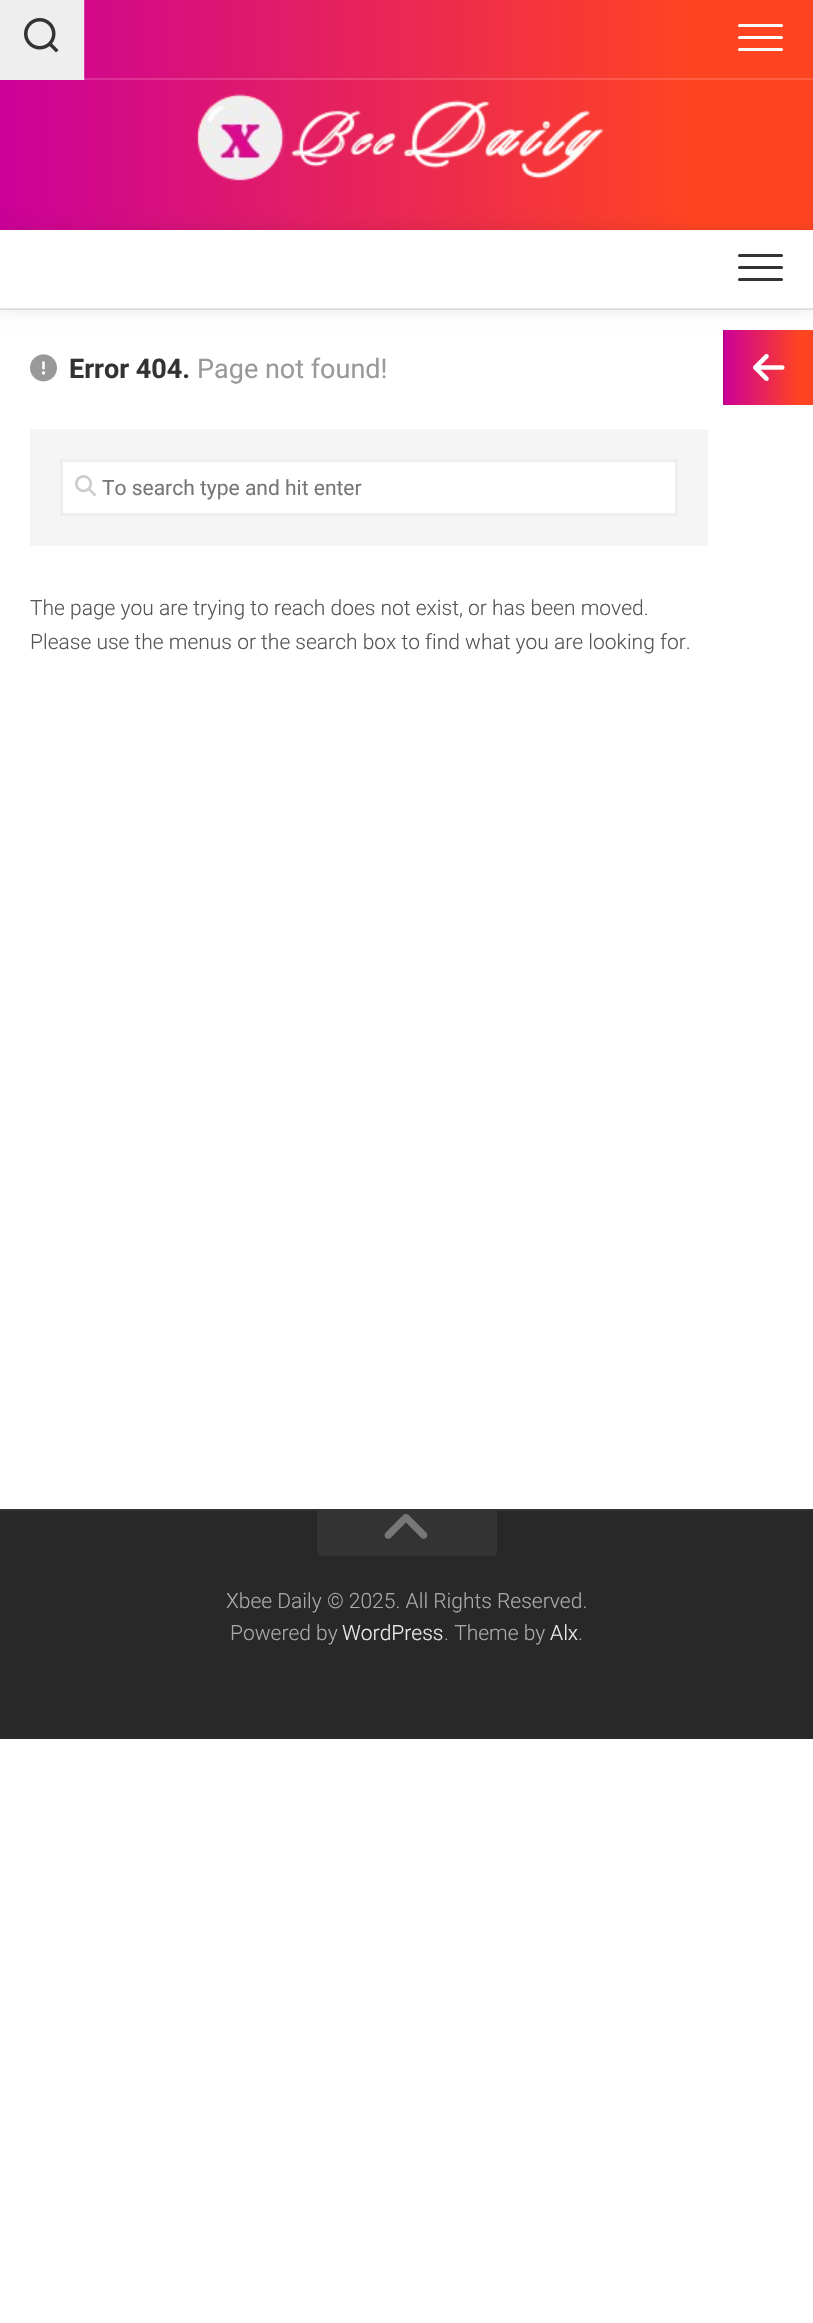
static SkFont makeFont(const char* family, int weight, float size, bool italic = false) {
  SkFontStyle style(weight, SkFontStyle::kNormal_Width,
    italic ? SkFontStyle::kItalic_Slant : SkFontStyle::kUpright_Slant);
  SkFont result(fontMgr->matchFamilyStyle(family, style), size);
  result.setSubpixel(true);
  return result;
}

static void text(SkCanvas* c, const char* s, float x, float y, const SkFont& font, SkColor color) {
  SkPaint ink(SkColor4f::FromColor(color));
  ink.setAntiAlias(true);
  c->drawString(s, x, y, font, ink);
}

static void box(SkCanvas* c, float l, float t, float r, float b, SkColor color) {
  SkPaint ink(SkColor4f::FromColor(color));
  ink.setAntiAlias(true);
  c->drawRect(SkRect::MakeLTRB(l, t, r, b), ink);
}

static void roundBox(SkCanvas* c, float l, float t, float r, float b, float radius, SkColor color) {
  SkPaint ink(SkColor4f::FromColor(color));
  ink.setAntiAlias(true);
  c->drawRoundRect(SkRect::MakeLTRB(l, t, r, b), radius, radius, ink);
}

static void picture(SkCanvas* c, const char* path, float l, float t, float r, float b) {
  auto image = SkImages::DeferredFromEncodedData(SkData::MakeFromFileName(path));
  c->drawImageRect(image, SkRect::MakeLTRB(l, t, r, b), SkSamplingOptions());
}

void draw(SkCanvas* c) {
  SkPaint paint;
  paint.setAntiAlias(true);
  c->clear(0xffffffff);
  {
    const SkColor colors[] = {0xffcc0099, 0xffff4422};
    const float stops[] = {0, 0.85f};
    const SkPoint ends[] = {{0, 155}, {813, 154}};
    paint.setShader(SkGradientShader::MakeLinear(ends, colors, stops, 2, SkTileMode::kClamp));
    paint.setAlpha(255);
  }
  c->drawRect(SkRect::MakeLTRB(0, 0, 813, 230), paint);
  {
    const SkColor colors[] = {0xffd633ad, 0xffff694e};
    const float stops[] = {0, 0.85f};
    const SkPoint ends[] = {{0, 155}, {813, 154}};
    paint.setShader(SkGradientShader::MakeLinear(ends, colors, stops, 2, SkTileMode::kClamp));
    paint.setAlpha(255);
  }
  c->drawRect(SkRect::MakeLTRB(84, 0, 85, 80), paint);
  {
    const SkColor colors[] = {0xffd426a8, 0xffff6043};
    const float stops[] = {0, 0.85f};
    const SkPoint ends[] = {{0, 155}, {813, 154}};
    paint.setShader(SkGradientShader::MakeLinear(ends, colors, stops, 2, SkTileMode::kClamp));
    paint.setAlpha(255);
  }
  c->drawRect(SkRect::MakeLTRB(85, 78, 813, 80), paint);
  {
    const SkColor colors[] = {0xffdd51b9, 0xffff8069};
    const float stops[] = {0, 0.85f};
    const SkPoint ends[] = {{0, 155}, {813, 154}};
    paint.setShader(SkGradientShader::MakeLinear(ends, colors, stops, 2, SkTileMode::kClamp));
    paint.setAlpha(255);
  }
  c->drawRect(SkRect::MakeLTRB(83, 78, 85, 80), paint);
  box(c, 1, 0, 83, 80, 0xffeeeeee);
  box(c, 83, 0, 84, 80, 0xfff1f1f1);
  box(c, 0, 0, 1, 80, 0xfff1f1f1);
  picture(c, "img_01.png", 24, 18, 59, 53);
  picture(c, "img_02.png", 196, 94, 604, 181);
  roundBox(c, 738, 24, 783, 27, 1.5f, 0xffffffff);
  roundBox(c, 738, 36, 783, 39, 1.5f, 0xffffffff);
  roundBox(c, 738, 48, 783, 51, 1.5f, 0xffffffff);
  {
    const SkColor colors[] = {0xffcc0099, 0xffff4422};
    const float stops[] = {0, 0.85f};
    const SkPoint ends[] = {{723, 368}, {813, 368}};
    paint.setShader(SkGradientShader::MakeLinear(ends, colors, stops, 2, SkTileMode::kClamp));
    paint.setAlpha(255);
  }
  c->drawRect(SkRect::MakeLTRB(725, 330, 813, 405), paint);
  box(c, 723, 330, 725, 405, 0xffb80088);
  paint.setShader(nullptr);
  paint.setColor(0x1a000000);
  paint.setMaskFilter(SkMaskFilter::MakeBlur(kNormal_SkBlurStyle, 7.5f));
  c->drawRect(SkRect::MakeLTRB(0, 230, 813, 309), paint);
  paint.setMaskFilter(nullptr);
  box(c, 0, 230, 813, 309, 0xffffffff);
  box(c, 0, 308, 813, 310, 0x1a000000);
  roundBox(c, 738, 254, 783, 257, 1.5f, 0xff333333);
  roundBox(c, 738, 266, 783, 269, 1.5f, 0xff333333);
  roundBox(c, 738, 278, 783, 281, 1.5f, 0xff333333);
  picture(c, "img_03.png", 30, 354, 57, 382);
  SkFont face1 = makeFont("Roboto", 700, 27);
  text(c, "Error 404.", 69, 378, face1, 0xff333333);
  SkFont face2 = makeFont("Roboto", 400, 27);
  text(c, "Page not found!", 197, 378, face2, 0xff999999);
  box(c, 30, 429, 708, 546, 0xfff5f5f5);
  paint.setColor(0xffffffff);
  c->drawRect(SkRect::MakeLTRB(61.5f, 460.5f, 676.5f, 514.5f), paint);
  paint.setStyle(SkPaint::kStroke_Style);
  paint.setStrokeWidth(3);
  paint.setColor(0xffeeeeee);
  c->drawRect(SkRect::MakeLTRB(61.5f, 460.5f, 676.5f, 514.5f), paint);
  picture(c, "img_04.png", 75, 475, 96, 496);
  SkFont face3 = makeFont("Roboto", 400, 21);
  text(c, "To search type and hit enter", 102, 495, face3, 0xff777777);
  SkFont face4 = makeFont("Roboto", 300, 21);
  text(c, "The page you are trying to reach does not exist, or has been moved.", 30, 615, face4, 0xff555555);
  text(c, "Please use the menus or the search box to find what you are looking for.", 30, 649, face4, 0xff555555);
  picture(c, "img_05.png", 753, 354, 785, 381);
  box(c, 0, 1511, 813, 1739, 0xff282828);
  box(c, 0, 1509, 813, 1511, 0xff333333);
  paint.setStyle(SkPaint::kFill_Style);
  paint.setColor(0xff333333);
  c->drawPath(SkPathBuilder().moveTo(317, 1511).lineTo(497, 1511).lineTo(497, 1551).cubicTo(497, 1554, 495, 1556, 492, 1556).lineTo(322, 1556).cubicTo(319, 1556, 317, 1554, 317, 1551).close().detach(), paint);
  picture(c, "img_06.png", 384, 1514, 428, 1539);
  text(c, "Xbee Daily © 2025. All Rights Reserved.", 226, 1608, face4, 0xffa9a9a9);
  text(c, "Powered by", 230, 1640, face4, 0xffa9a9a9);
  text(c, "WordPress", 342, 1640, face4, 0xffeaeaea);
  text(c, ". Theme by", 444, 1640, face4, 0xffa9a9a9);
  text(c, "Alx", 550, 1640, face4, 0xffeaeaea);
  text(c, ".", 578, 1640, face4, 0xffa9a9a9);
}
